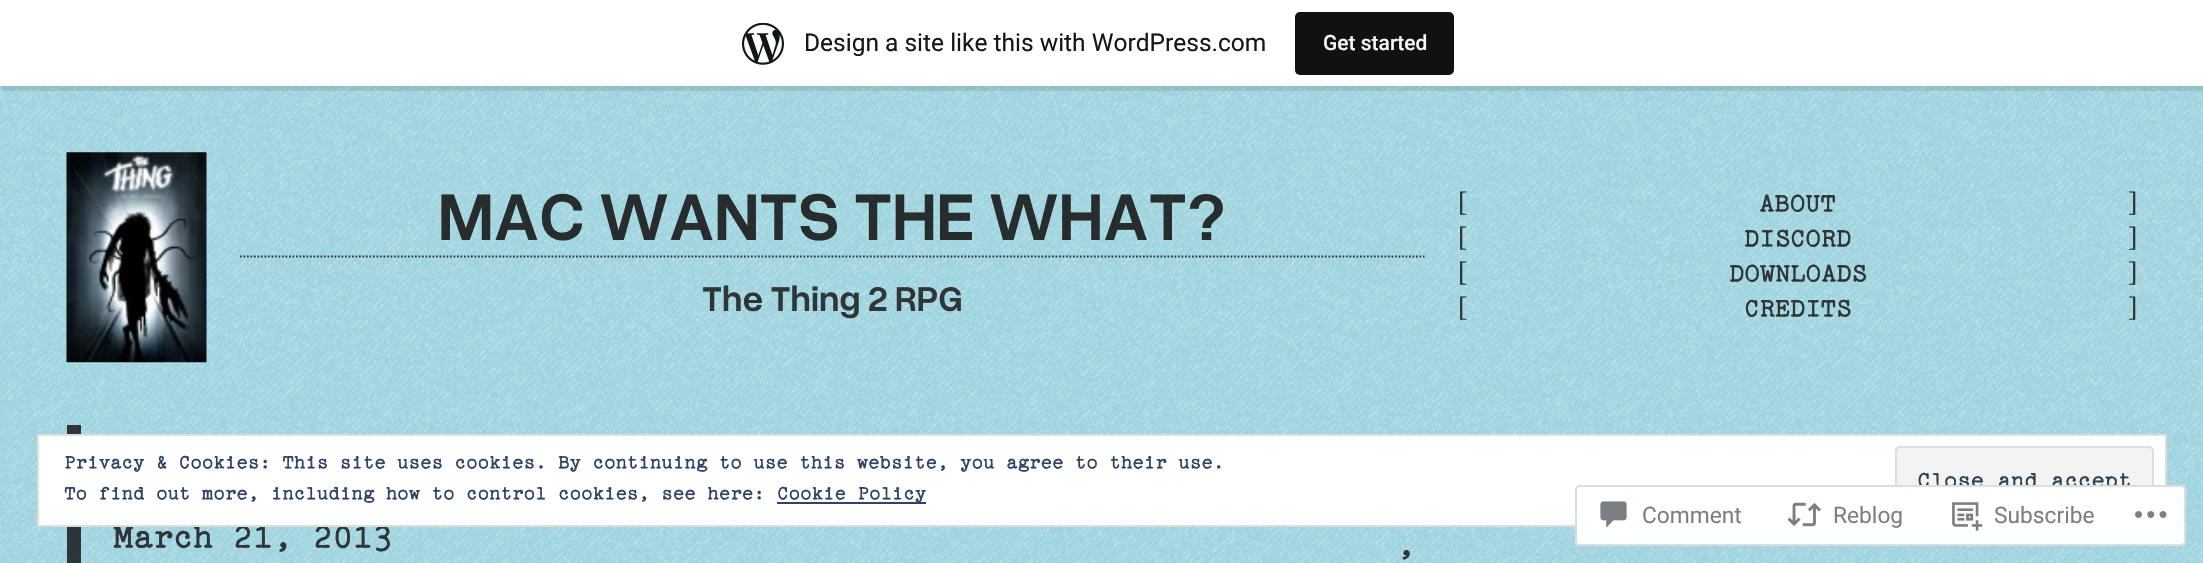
static SkFont makeFont(const char* family, int weight, float size, bool italic = false) {
  SkFontStyle style(weight, SkFontStyle::kNormal_Width,
    italic ? SkFontStyle::kItalic_Slant : SkFontStyle::kUpright_Slant);
  SkFont result(fontMgr->matchFamilyStyle(family, style), size);
  result.setSubpixel(true);
  return result;
}

static void text(SkCanvas* c, const char* s, float x, float y, const SkFont& font, SkColor color) {
  SkPaint ink(SkColor4f::FromColor(color));
  ink.setAntiAlias(true);
  c->drawString(s, x, y, font, ink);
}

static void box(SkCanvas* c, float l, float t, float r, float b, SkColor color) {
  SkPaint ink(SkColor4f::FromColor(color));
  ink.setAntiAlias(true);
  c->drawRect(SkRect::MakeLTRB(l, t, r, b), ink);
}

static void roundBox(SkCanvas* c, float l, float t, float r, float b, float radius, SkColor color) {
  SkPaint ink(SkColor4f::FromColor(color));
  ink.setAntiAlias(true);
  c->drawRoundRect(SkRect::MakeLTRB(l, t, r, b), radius, radius, ink);
}

static void picture(SkCanvas* c, const char* path, float l, float t, float r, float b) {
  auto image = SkImages::DeferredFromEncodedData(SkData::MakeFromFileName(path));
  c->drawImageRect(image, SkRect::MakeLTRB(l, t, r, b), SkSamplingOptions());
}

void draw(SkCanvas* c) {
  SkPaint paint;
  paint.setAntiAlias(true);
  c->clear(0xff9fd4df);
  picture(c, "img_02.png", 0, 86, 2203, 563);
  paint.setColor(0x0d000000);
  paint.setMaskFilter(SkMaskFilter::MakeBlur(kNormal_SkBlurStyle, 2));
  c->drawRect(SkRect::MakeLTRB(0, 2, 2203, 88), paint);
  paint.setMaskFilter(nullptr);
  paint.setColor(0x14000000);
  c->drawPath(SkPathBuilder().moveTo(2, 86).lineTo(2, 91).lineTo(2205, 91).lineTo(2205, 5).lineTo(2203, 5).lineTo(2203, 86).close().detach(), paint);
  box(c, 0, 0, 2203, 86, 0xffffffff);
  picture(c, "img_01.png", 742, 23, 784, 65);
  SkFont face1 = makeFont("Roboto", 400, 24.5f);
  text(c, "Design a site like this with WordPress.com", 804, 51, face1, 0xff171717);
  roundBox(c, 1295, 12, 1454, 75, 5, 0xff111111);
  SkFont face2 = makeFont("Roboto", 500, 21);
  text(c, "Get started", 1323, 50, face2, 0xfff6f7f7);
  picture(c, "img_03.png", 66, 152, 207, 363);
  paint.setStyle(SkPaint::kStroke_Style);
  paint.setStrokeWidth(1.8f);
  paint.setColor(0xd919191a);
  paint.setPathEffect(SkDashPathEffect::Make({{1.75f, 1.75f}}, 0));
  c->drawPath(SkPathBuilder().moveTo(240, 256.5f).lineTo(1424.5f, 256.5f).detach(), paint);
  paint.setPathEffect(nullptr);
  SkFont face3 = makeFont("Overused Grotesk", 600, 70);
  text(c, "MAC WANTS THE WHAT?", 438, 240, face3, 0xff272c2e);
  SkFont face4 = makeFont("Overused Grotesk", 600, 36.5f);
  text(c, "The Thing 2 RPG", 702, 311, face4, 0xff2e3638);
  SkFont face5 = makeFont("Liberation Serif", 400, 28);
  text(c, "[", 1458, 211, face5, 0xff2e3638);
  text(c, "[", 1458, 246, face5, 0xff2e3638);
  text(c, "[", 1458, 281, face5, 0xff2e3638);
  text(c, "[", 1458, 316, face5, 0xff2e3638);
  SkFont face6 = makeFont("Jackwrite", 400, 28);
  text(c, "ABOUT", 1759, 211, face6, 0xff2e3638);
  text(c, "DISCORD", 1744, 246, face6, 0xff2e3638);
  text(c, "DOWNLOADS", 1729, 281, face6, 0xff2e3638);
  text(c, "CREDITS", 1744, 316, face6, 0xff2e3638);
  text(c, "]", 2128, 211, face5, 0xff2e3638);
  text(c, "]", 2128, 246, face5, 0xff2e3638);
  text(c, "]", 2128, 281, face5, 0xff2e3638);
  text(c, "]", 2128, 316, face5, 0xff2e3638);
  box(c, 67, 425, 81, 563, 0xd919191a);
  SkFont face7 = makeFont("Jackwrite", 400, 36.5f);
  text(c, "March 21, 2013", 113, 547, face7, 0xff2e3638);
  text(c, "’", 1396, 571, face7, 0xff2e3638);
  paint.setStyle(SkPaint::kFill_Style);
  paint.setColor(0xffffffff);
  c->drawRect(SkRect::MakeLTRB(38, 435, 2166, 526), paint);
  paint.setStyle(SkPaint::kStroke_Style);
  paint.setStrokeWidth(2);
  paint.setColor(0xffdedede);
  c->drawRect(SkRect::MakeLTRB(38, 435, 2166, 526), paint);
  SkFont face8 = makeFont("Jackwrite", 400, 21);
  text(c, "Privacy & Cookies: This site uses cookies. By continuing to use this website, you agree to their use.", 64, 468, face8, 0xff2e4467);
  paint.setStyle(SkPaint::kFill_Style);
  paint.setColor(0xfff3f3f3);
  c->drawRoundRect(SkRect::MakeLTRB(1896, 447, 2153, 514), 4, 4, paint);
  paint.setStyle(SkPaint::kStroke_Style);
  paint.setColor(0xffdedede);
  c->drawRoundRect(SkRect::MakeLTRB(1896, 447, 2153, 514), 4, 4, paint);
  SkFont face9 = makeFont("Jackwrite", 400, 24.5f);
  text(c, "Close and accept", 1917, 487, face9, 0xff2e4453);
  text(c, "To find out more, including how to control cookies, see here:", 64, 499, face8, 0xff2e4467);
  box(c, 777, 502, 926, 504, 0xff2e4467);
  text(c, "Cookie Policy", 777, 499, face8, 0xff2e4467);
  roundBox(c, 1575, 485, 2186, 546, 5, 0xfaffffff);
  paint.setColor(0xfadcdcde);
  c->drawRoundRect(SkRect::MakeLTRB(1576, 486, 2185, 545), 4, 4, paint);
  picture(c, "img_04.png", 1600, 501, 1627, 528);
  SkFont face10 = makeFont("Roboto", 400, 22.75f);
  text(c, "Comment", 1642, 523, face10, 0xff7b7f85);
  picture(c, "img_05.png", 1787, 502, 1821, 527);
  text(c, "Reblog", 1833, 523, face10, 0xff7b7f85);
  picture(c, "img_06.png", 1952, 502, 1983, 531);
  text(c, "Subscribe", 1994, 523, face10, 0xff7b7f85);
  picture(c, "img_07.png", 2135, 511, 2167, 518);
}
